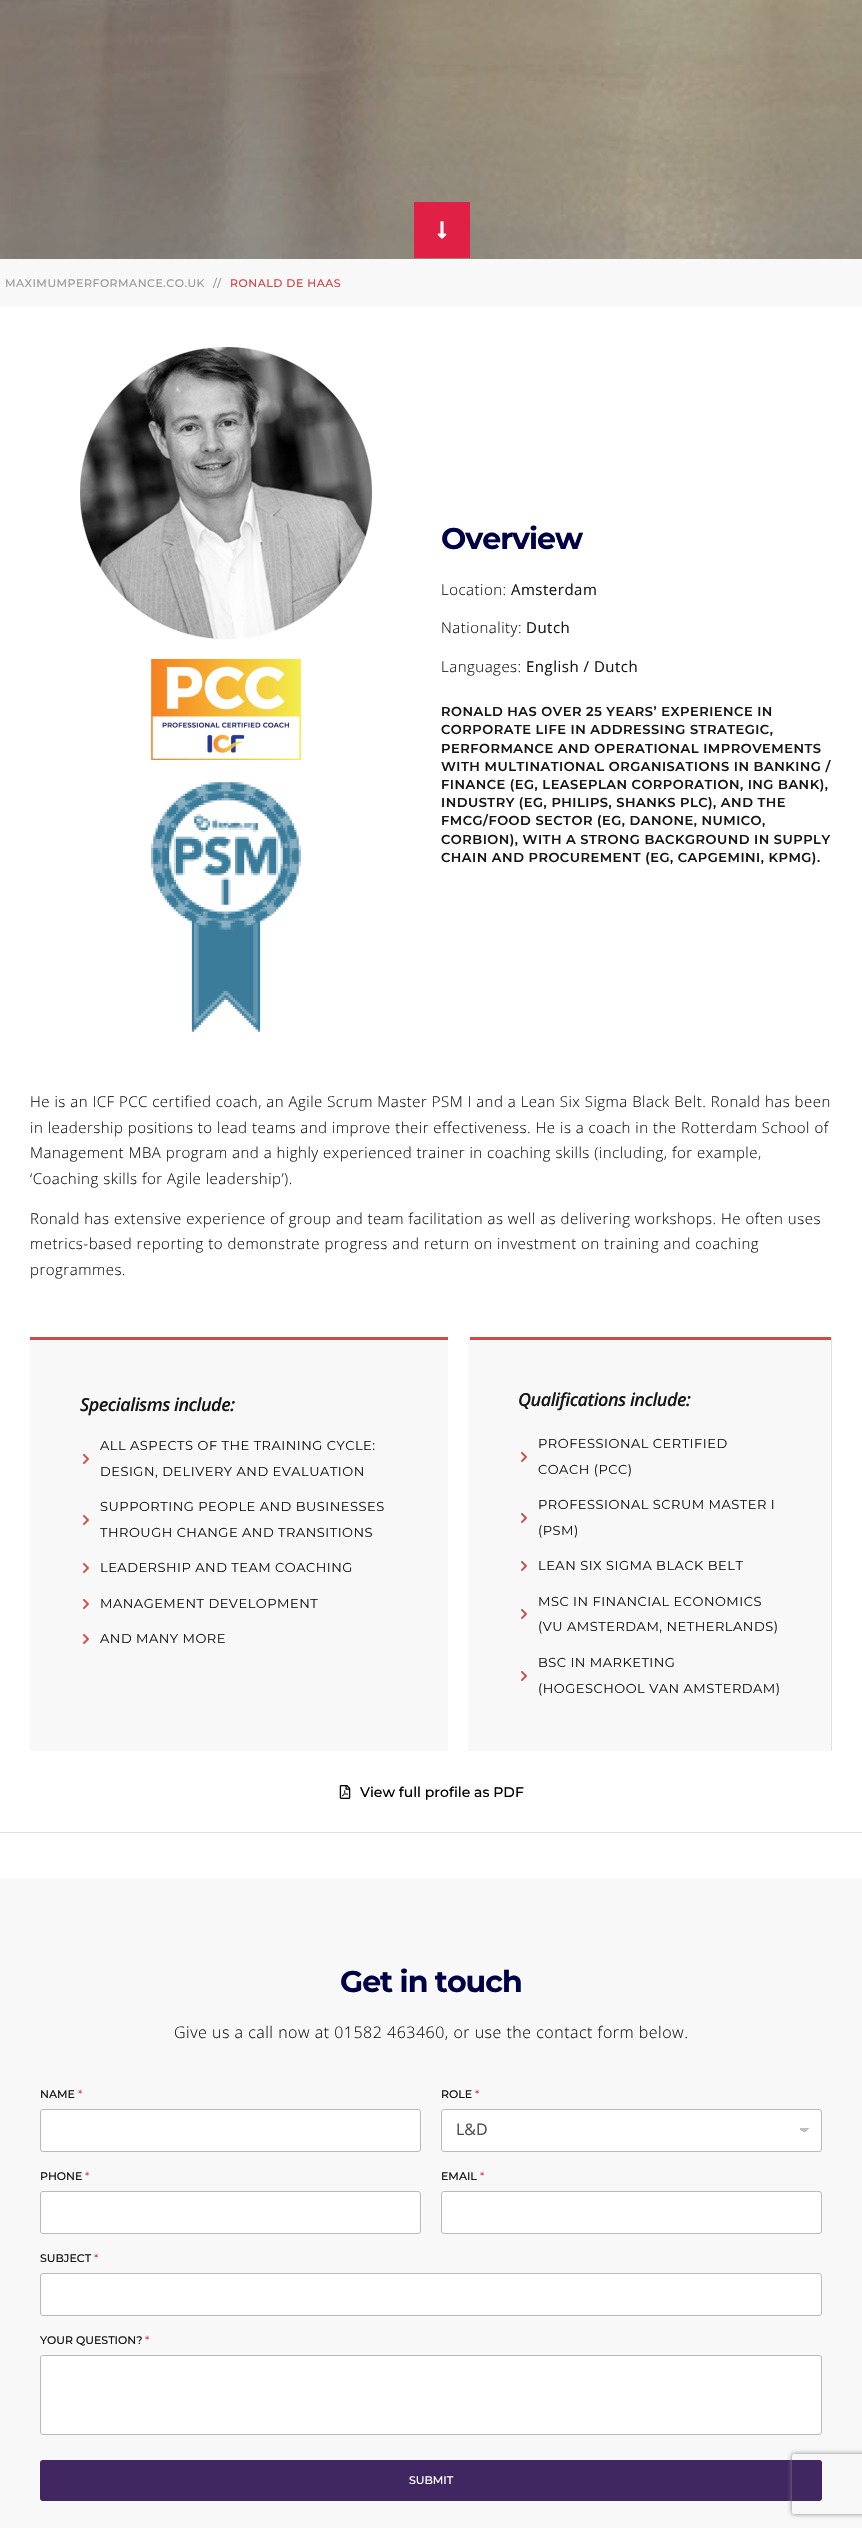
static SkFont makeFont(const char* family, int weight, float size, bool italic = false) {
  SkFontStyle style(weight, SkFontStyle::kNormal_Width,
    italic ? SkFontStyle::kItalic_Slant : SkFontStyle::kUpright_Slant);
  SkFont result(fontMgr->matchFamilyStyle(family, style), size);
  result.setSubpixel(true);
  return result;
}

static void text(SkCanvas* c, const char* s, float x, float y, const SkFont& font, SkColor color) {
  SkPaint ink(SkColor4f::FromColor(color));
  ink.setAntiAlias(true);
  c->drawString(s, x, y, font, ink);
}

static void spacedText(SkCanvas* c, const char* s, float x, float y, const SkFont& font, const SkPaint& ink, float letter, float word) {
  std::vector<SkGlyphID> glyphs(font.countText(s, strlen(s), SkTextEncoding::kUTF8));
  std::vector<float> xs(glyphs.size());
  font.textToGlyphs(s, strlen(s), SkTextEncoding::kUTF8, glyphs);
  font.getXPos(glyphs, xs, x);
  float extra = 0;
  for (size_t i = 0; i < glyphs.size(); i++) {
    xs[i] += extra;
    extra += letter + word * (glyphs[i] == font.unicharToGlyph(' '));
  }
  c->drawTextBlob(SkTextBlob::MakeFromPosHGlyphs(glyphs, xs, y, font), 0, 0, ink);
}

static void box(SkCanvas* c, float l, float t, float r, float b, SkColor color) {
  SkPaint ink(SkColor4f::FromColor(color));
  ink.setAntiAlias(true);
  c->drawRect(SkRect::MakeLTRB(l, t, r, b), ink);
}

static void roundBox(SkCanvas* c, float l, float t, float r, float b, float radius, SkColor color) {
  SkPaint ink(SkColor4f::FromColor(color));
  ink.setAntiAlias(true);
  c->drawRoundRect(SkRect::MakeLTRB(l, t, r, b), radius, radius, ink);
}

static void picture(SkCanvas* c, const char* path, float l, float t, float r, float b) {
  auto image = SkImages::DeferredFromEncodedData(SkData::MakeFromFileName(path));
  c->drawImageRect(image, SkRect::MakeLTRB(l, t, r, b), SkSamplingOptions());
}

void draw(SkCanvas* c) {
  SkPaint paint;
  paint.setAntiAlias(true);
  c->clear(0xffffffff);
  picture(c, "img_01.png", 0, 0, 862, 259);
  box(c, 414, 202, 470, 258, 0xffe12045);
  picture(c, "img_02.png", 437, 221, 447, 239);
  box(c, 0, 259, 862, 307, 0xfff8f8f8);
  SkFont face1 = makeFont("Montserrat", 500, 11);
  paint.setColor(0xff9b9b9b);
  spacedText(c, "MAXIMUMPERFORMANCE.CO.UK", 5, 287, face1, paint, 0.5f, 0);
  spacedText(c, "//", 213, 287, face1, paint, 0.5f, 0);
  paint.setColor(0xffd34848);
  spacedText(c, "RONALD DE HAAS", 230, 287, face1, paint, 0.5f, 0);
  picture(c, "img_03.png", 80, 347, 372, 639);
  picture(c, "img_04.png", 151, 659, 301, 760);
  picture(c, "img_05.png", 151, 782, 301, 1032);
  SkFont face2 = makeFont("Montserrat", 700, 30);
  paint.setColor(0xff000047);
  spacedText(c, "Overview", 441, 549, face2, paint, -1, 0);
  SkFont face3 = makeFont("Open Sans", 300, 15);
  paint.setColor(0xff161616);
  spacedText(c, "Location:", 441, 595, face3, paint, 0.5f, 0);
  SkFont face4 = makeFont("Open Sans", 400, 15);
  spacedText(c, "Amsterdam", 511, 595, face4, paint, 0.5f, 0);
  spacedText(c, "Nationality:", 441, 633, face3, paint, 0.5f, 0);
  spacedText(c, "Dutch", 526, 633, face4, paint, 0.5f, 0);
  spacedText(c, "Languages:", 441, 672, face3, paint, 0.5f, 0);
  spacedText(c, "English / Dutch", 526, 672, face4, paint, 0.5f, 0);
  SkFont face5 = makeFont("Montserrat", 600, 13);
  spacedText(c, "RONALD HAS OVER 25 YEARS’ EXPERIENCE IN", 441, 716, face5, paint, 0.5f, 0);
  spacedText(c, "CORPORATE LIFE IN ADDRESSING STRATEGIC,", 441, 734, face5, paint, 0.5f, 0);
  spacedText(c, "PERFORMANCE AND OPERATIONAL IMPROVEMENTS", 441, 753, face5, paint, 0.5f, 0);
  spacedText(c, "WITH MULTINATIONAL ORGANISATIONS IN BANKING /", 441, 771, face5, paint, 0.5f, 0);
  spacedText(c, "FINANCE (EG, LEASEPLAN CORPORATION, ING BANK),", 441, 789, face5, paint, 0.5f, 0);
  spacedText(c, "INDUSTRY (EG, PHILIPS, SHANKS PLC), AND THE", 441, 807, face5, paint, 0.5f, 0);
  spacedText(c, "FMCG/FOOD SECTOR (EG, DANONE, NUMICO,", 441, 825, face5, paint, 0.5f, 0);
  spacedText(c, "CORBION), WITH A STRONG BACKGROUND IN SUPPLY", 441, 844, face5, paint, 0.5f, 0);
  spacedText(c, "CHAIN AND PROCUREMENT (EG, CAPGEMINI, KPMG).", 441, 862, face5, paint, 0.5f, 0);
  spacedText(c, "He is an ICF PCC certified coach, an Agile Scrum Master PSM I and a Lean Six Sigma Black Belt. Ronald has been", 30, 1107, face3, paint, 0.5f, 0);
  spacedText(c, "in leadership positions to lead teams and improve their effectiveness. He is a coach in the Rotterdam School of", 30, 1133, face3, paint, 0.5f, 0);
  spacedText(c, "Management MBA program and a highly experienced trainer in coaching skills (including, for example,", 30, 1158, face3, paint, 0.5f, 0);
  spacedText(c, "‘Coaching skills for Agile leadership’).", 30, 1184, face3, paint, 0.5f, 0);
  spacedText(c, "Ronald has extensive experience of group and team facilitation as well as delivering workshops. He often uses", 30, 1224, face3, paint, 0.5f, 0);
  spacedText(c, "metrics-based reporting to demonstrate progress and return on investment on training and coaching", 30, 1249, face3, paint, 0.5f, 0);
  spacedText(c, "programmes.", 30, 1275, face3, paint, 0.5f, 0);
  box(c, 30, 1340, 448, 1751, 0xfff8f8f8);
  box(c, 30, 1337, 448, 1340, 0xffd34848);
  SkFont face6 = makeFont("Open Sans", 600, 18, true);
  spacedText(c, "Specialisms include:", 80, 1411, face6, paint, -0.5f, 0);
  picture(c, "img_06.png", 83, 1454, 89, 1464);
  SkFont face7 = makeFont("Montserrat", 400, 13);
  spacedText(c, "ALL ASPECTS OF THE TRAINING CYCLE:", 100, 1450, face7, paint, 0.5f, 0);
  spacedText(c, "DESIGN, DELIVERY AND EVALUATION", 100, 1476, face7, paint, 0.5f, 0);
  picture(c, "img_06.png", 83, 1515, 89, 1525);
  spacedText(c, "SUPPORTING PEOPLE AND BUSINESSES", 100, 1511, face7, paint, 0.5f, 0);
  spacedText(c, "THROUGH CHANGE AND TRANSITIONS", 100, 1537, face7, paint, 0.5f, 0);
  picture(c, "img_06.png", 83, 1563, 89, 1573);
  spacedText(c, "LEADERSHIP AND TEAM COACHING", 100, 1572, face7, paint, 0.5f, 0);
  picture(c, "img_06.png", 83, 1599, 89, 1609);
  spacedText(c, "MANAGEMENT DEVELOPMENT", 100, 1608, face7, paint, 0.5f, 0);
  picture(c, "img_06.png", 83, 1634, 89, 1644);
  spacedText(c, "AND MANY MORE", 100, 1643, face7, paint, 0.5f, 0);
  box(c, 831, 1337, 832, 1751, 0xffe2e2e2);
  paint.setColor(0xfff8f8f8);
  c->drawPath(SkPathBuilder().moveTo(471, 1340).lineTo(831, 1340).lineTo(831, 1751).lineTo(468, 1751).lineTo(468, 1340).close().detach(), paint);
  box(c, 470, 1337, 831, 1340, 0xffd34848);
  paint.setColor(0xff161616);
  spacedText(c, "Qualifications include:", 518, 1406, face6, paint, -0.5f, 0);
  picture(c, "img_06.png", 521, 1452, 527, 1462);
  spacedText(c, "PROFESSIONAL CERTIFIED", 538, 1448, face7, paint, 0.5f, 0);
  spacedText(c, "COACH (PCC)", 538, 1474, face7, paint, 0.5f, 0);
  picture(c, "img_06.png", 521, 1513, 527, 1523);
  spacedText(c, "PROFESSIONAL SCRUM MASTER I", 538, 1509, face7, paint, 0.5f, 0);
  spacedText(c, "(PSM)", 538, 1535, face7, paint, 0.5f, 0);
  picture(c, "img_06.png", 521, 1561, 527, 1571);
  spacedText(c, "LEAN SIX SIGMA BLACK BELT", 538, 1570, face7, paint, 0.5f, 0);
  picture(c, "img_06.png", 521, 1609, 527, 1619);
  spacedText(c, "MSC IN FINANCIAL ECONOMICS", 538, 1606, face7, paint, 0.5f, 0);
  spacedText(c, "(VU AMSTERDAM, NETHERLANDS)", 538, 1631, face7, paint, 0.5f, 0);
  picture(c, "img_06.png", 521, 1671, 527, 1681);
  spacedText(c, "BSC IN MARKETING", 538, 1667, face7, paint, 0.5f, 0);
  spacedText(c, "(HOGESCHOOL VAN AMSTERDAM)", 538, 1693, face7, paint, 0.5f, 0);
  picture(c, "img_07.png", 339, 1785, 351, 1799);
  SkFont face8 = makeFont("Montserrat", 500, 14);
  text(c, "View full profile as PDF", 360, 1797, face8, 0xff000000);
  box(c, 0, 1832, 862, 1833, 0xffe2e2e2);
  box(c, 0, 1878, 862, 2528, 0xfff8f8f8);
  paint.setColor(0xff000047);
  spacedText(c, "Get in touch", 340, 1992, face2, paint, -1, 0);
  SkFont face9 = makeFont("Open Sans", 300, 16);
  paint.setColor(0xff161616);
  spacedText(c, "Give us a call now at 01582 463460, or use the contact form below.", 174, 2038, face9, paint, 0.5f, 0);
  text(c, "NAME", 40, 2098, face1, 0xff161616);
  SkFont face10 = makeFont("Montserrat", 400, 11);
  text(c, "*", 78, 2098, face10, 0xffd63637);
  paint.setColor(0xffffffff);
  c->drawRoundRect(SkRect::MakeLTRB(40.5f, 2109.5f, 420.5f, 2151.5f), 2.5f, 2.5f, paint);
  paint.setStyle(SkPaint::kStroke_Style);
  paint.setStrokeWidth(1);
  paint.setColor(0xffbababa);
  c->drawRoundRect(SkRect::MakeLTRB(40.5f, 2109.5f, 420.5f, 2151.5f), 2.5f, 2.5f, paint);
  text(c, "PHONE", 40, 2180, face1, 0xff161616);
  text(c, "*", 85, 2180, face10, 0xffd63637);
  paint.setStyle(SkPaint::kFill_Style);
  paint.setColor(0xffffffff);
  c->drawRoundRect(SkRect::MakeLTRB(40.5f, 2191.5f, 420.5f, 2233.5f), 2.5f, 2.5f, paint);
  paint.setStyle(SkPaint::kStroke_Style);
  paint.setColor(0xffbababa);
  c->drawRoundRect(SkRect::MakeLTRB(40.5f, 2191.5f, 420.5f, 2233.5f), 2.5f, 2.5f, paint);
  text(c, "ROLE", 441, 2098, face1, 0xff161616);
  text(c, "*", 475, 2098, face10, 0xffd63637);
  roundBox(c, 442, 2110, 821, 2151, 2, 0xffffffff);
  paint.setStyle(SkPaint::kFill_Style);
  {
    const SkColor colors[] = {0xffbfbfbf, 0xffffffff};
    const float stops[] = {0.5f, 0.5f};
    const SkPoint ends[] = {{804, 2128}, {809, 2133}};
    paint.setShader(SkGradientShader::MakeLinear(ends, colors, stops, 2, SkTileMode::kClamp));
    paint.setAlpha(255);
  }
  c->drawRect(SkRect::MakeLTRB(804, 2128, 809, 2132), paint);
  {
    const SkColor colors[] = {0xffffffff, 0xffbfbfbf};
    const float stops[] = {0.5f, 0.5f};
    const SkPoint ends[] = {{799, 2133}, {804, 2128}};
    paint.setShader(SkGradientShader::MakeLinear(ends, colors, stops, 2, SkTileMode::kClamp));
    paint.setAlpha(255);
  }
  c->drawRect(SkRect::MakeLTRB(799, 2128, 804, 2132), paint);
  paint.setStyle(SkPaint::kStroke_Style);
  paint.setShader(nullptr);
  paint.setColor(0xffbababa);
  c->drawRoundRect(SkRect::MakeLTRB(441.5f, 2109.5f, 821.5f, 2151.5f), 2.5f, 2.5f, paint);
  SkFont face11 = makeFont("Open Sans", 400, 16);
  text(c, "L&D", 456, 2135, face11, 0xff4d4d4d);
  text(c, "EMAIL", 441, 2180, face1, 0xff161616);
  text(c, "*", 480, 2180, face10, 0xffd63637);
  paint.setStyle(SkPaint::kFill_Style);
  paint.setColor(0xffffffff);
  c->drawRoundRect(SkRect::MakeLTRB(441.5f, 2191.5f, 821.5f, 2233.5f), 2.5f, 2.5f, paint);
  paint.setStyle(SkPaint::kStroke_Style);
  paint.setColor(0xffbababa);
  c->drawRoundRect(SkRect::MakeLTRB(441.5f, 2191.5f, 821.5f, 2233.5f), 2.5f, 2.5f, paint);
  text(c, "SUBJECT", 40, 2262, face1, 0xff161616);
  text(c, "*", 94, 2262, face10, 0xffd63637);
  paint.setStyle(SkPaint::kFill_Style);
  paint.setColor(0xffffffff);
  c->drawRoundRect(SkRect::MakeLTRB(40.5f, 2273.5f, 821.5f, 2315.5f), 2.5f, 2.5f, paint);
  paint.setStyle(SkPaint::kStroke_Style);
  paint.setColor(0xffbababa);
  c->drawRoundRect(SkRect::MakeLTRB(40.5f, 2273.5f, 821.5f, 2315.5f), 2.5f, 2.5f, paint);
  text(c, "YOUR QUESTION?", 40, 2344, face1, 0xff161616);
  text(c, "*", 145, 2344, face10, 0xffd63637);
  paint.setStyle(SkPaint::kFill_Style);
  paint.setColor(0xffffffff);
  c->drawRoundRect(SkRect::MakeLTRB(40.5f, 2355.5f, 821.5f, 2434.5f), 2.5f, 2.5f, paint);
  paint.setStyle(SkPaint::kStroke_Style);
  paint.setColor(0xffbababa);
  c->drawRoundRect(SkRect::MakeLTRB(40.5f, 2355.5f, 821.5f, 2434.5f), 2.5f, 2.5f, paint);
  roundBox(c, 40, 2460, 822, 2501, 3, 0xff412761);
  text(c, "SUBMIT", 409, 2484, face1, 0xffffffff);
  c->save();
  c->clipPath(SkPathBuilder(SkPathFillType::kEvenOdd).moveTo(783, 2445).lineTo(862, 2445).lineTo(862, 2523).lineTo(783, 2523).close().moveTo(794, 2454).lineTo(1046, 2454).cubicTo(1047, 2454, 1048, 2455, 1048, 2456).lineTo(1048, 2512).cubicTo(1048, 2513, 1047, 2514, 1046, 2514).lineTo(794, 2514).cubicTo(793, 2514, 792, 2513, 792, 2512).lineTo(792, 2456).cubicTo(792, 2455, 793, 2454, 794, 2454).close().detach(), true);
  paint.setStyle(SkPaint::kFill_Style);
  paint.setColor(0xff808080);
  paint.setMaskFilter(SkMaskFilter::MakeBlur(kNormal_SkBlurStyle, 2.5f));
  c->drawRoundRect(SkRect::MakeLTRB(792, 2454, 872, 2514), 2, 2, paint);
  paint.setMaskFilter(nullptr);
  c->restore();
}
